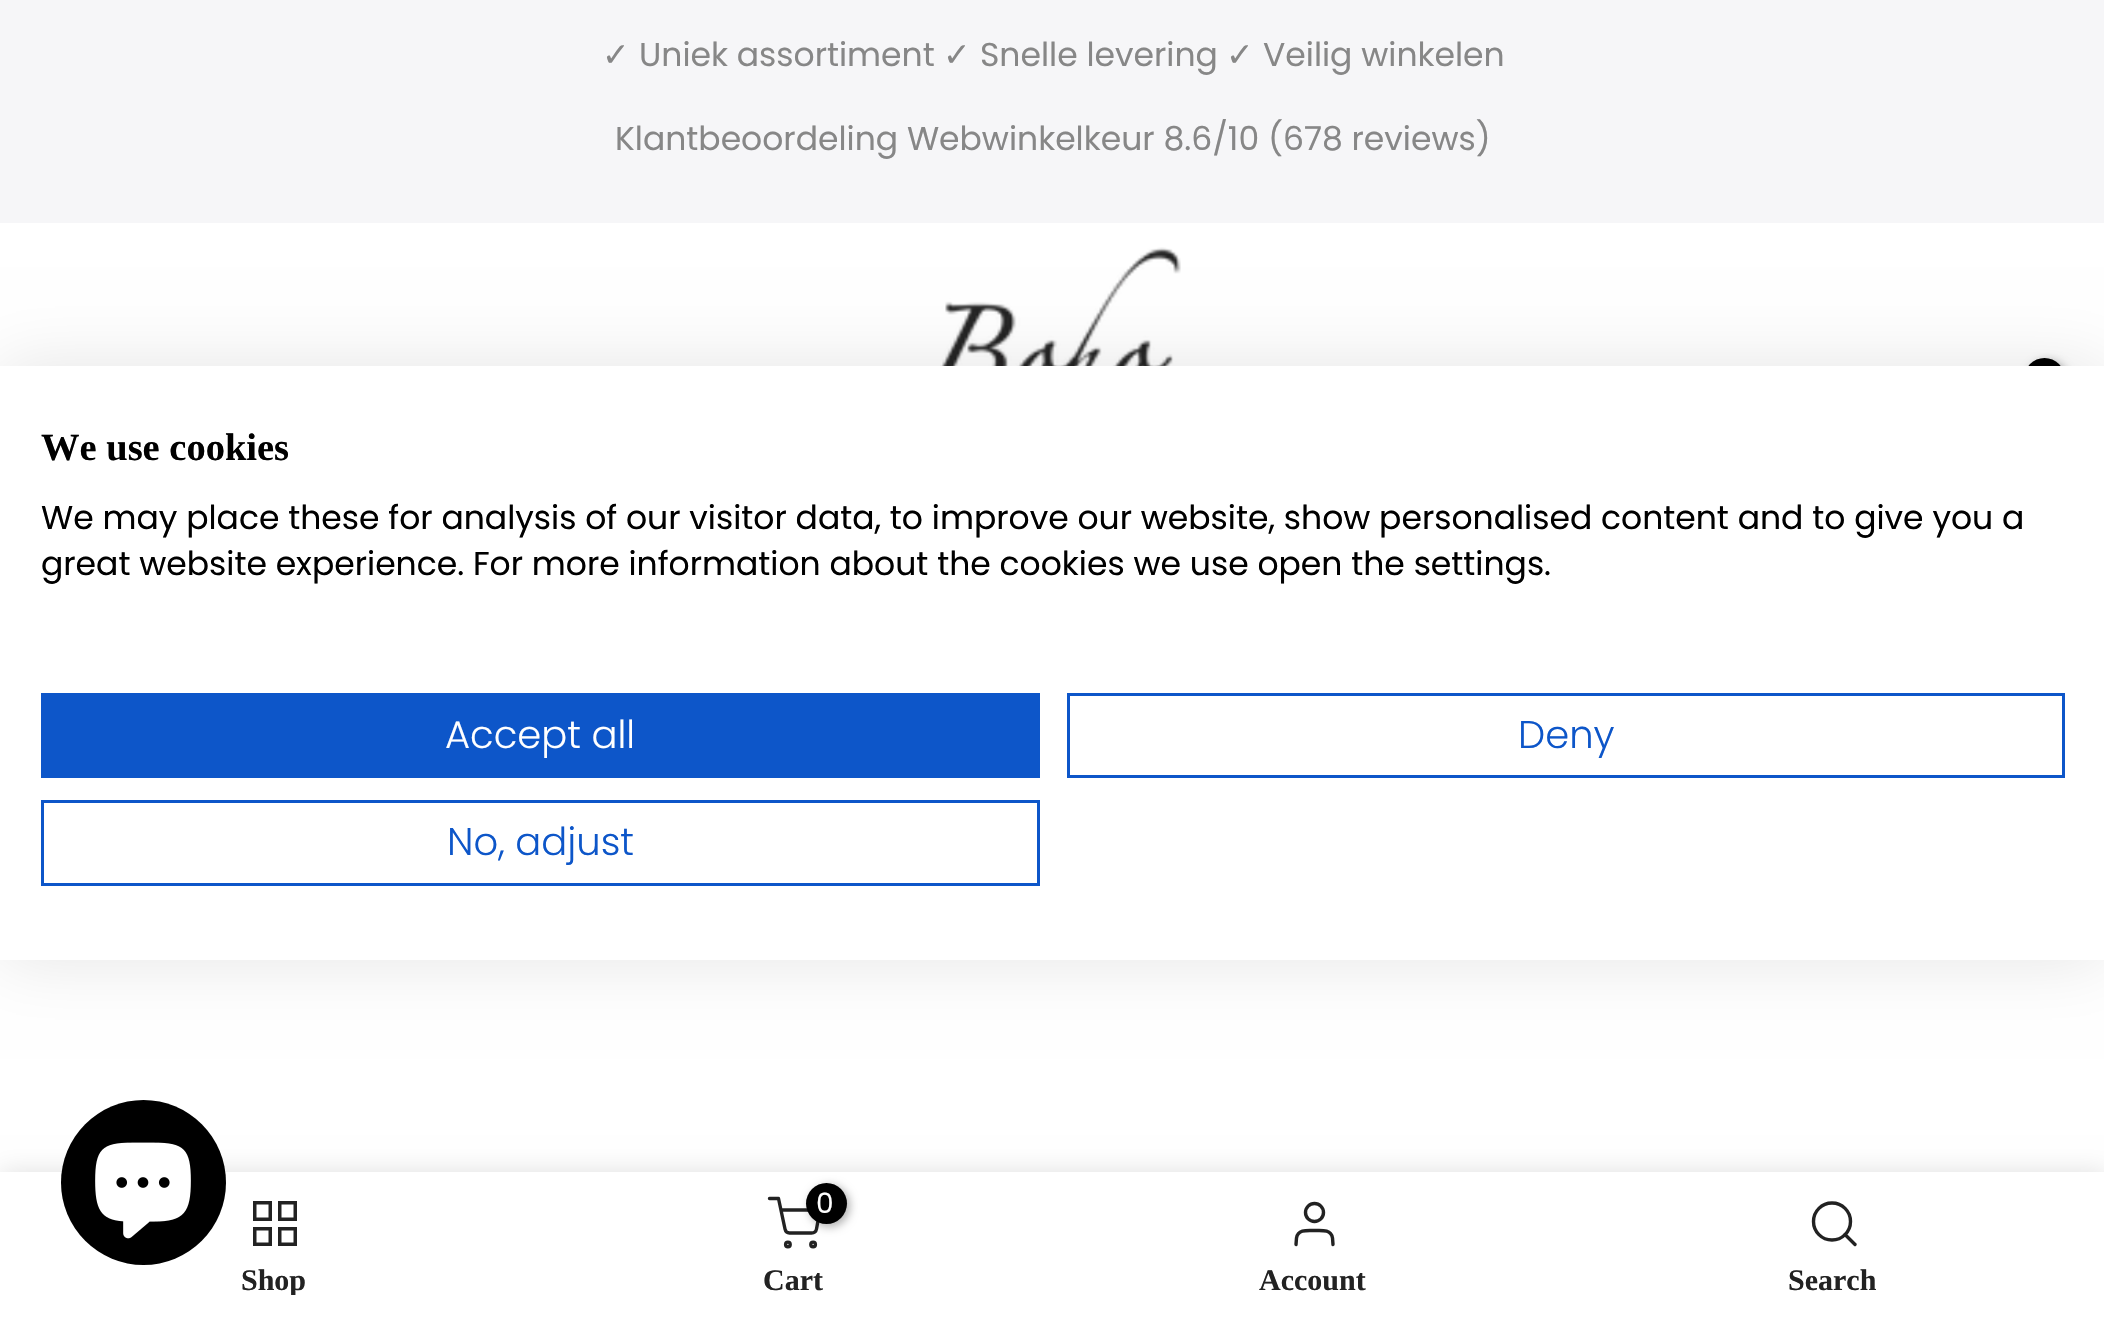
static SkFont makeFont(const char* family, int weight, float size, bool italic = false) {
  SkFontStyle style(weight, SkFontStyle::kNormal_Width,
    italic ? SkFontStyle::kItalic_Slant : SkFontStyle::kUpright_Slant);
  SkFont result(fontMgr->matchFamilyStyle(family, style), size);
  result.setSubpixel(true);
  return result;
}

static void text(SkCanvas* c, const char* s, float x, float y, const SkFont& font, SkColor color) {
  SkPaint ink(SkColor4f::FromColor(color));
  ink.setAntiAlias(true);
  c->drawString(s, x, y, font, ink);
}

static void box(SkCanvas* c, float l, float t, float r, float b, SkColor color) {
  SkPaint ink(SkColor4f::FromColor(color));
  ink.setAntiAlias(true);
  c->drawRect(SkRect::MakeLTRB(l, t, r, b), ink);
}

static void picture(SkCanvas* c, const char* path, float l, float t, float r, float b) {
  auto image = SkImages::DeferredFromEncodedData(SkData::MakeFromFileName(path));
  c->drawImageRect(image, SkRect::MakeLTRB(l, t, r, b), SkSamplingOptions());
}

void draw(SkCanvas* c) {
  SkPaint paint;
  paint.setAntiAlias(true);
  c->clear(0xffffffff);
  box(c, 0, 0, 2104, 223, 0xfff6f6f8);
  SkFont face1 = makeFont("DejaVu Sans", 400, 33);
  text(c, "✓", 602, 66, face1, 0xff878787);
  SkFont face2 = makeFont("Poppins", 400, 33);
  text(c, "Uniek assortiment", 639, 66, face2, 0xff878787);
  text(c, "✓", 943, 66, face1, 0xff878787);
  text(c, "Snelle levering", 980, 66, face2, 0xff878787);
  text(c, "✓", 1226, 66, face1, 0xff878787);
  text(c, "Veilig winkelen", 1263, 66, face2, 0xff878787);
  text(c, "Klantbeoordeling Webwinkelkeur 8.6/10 (678 reviews)", 615, 150, face2, 0xff878787);
  picture(c, "img_01.png", 940, 247, 1181, 366);
  paint.setColor(0x4d000000);
  paint.setMaskFilter(SkMaskFilter::MakeBlur(kNormal_SkBlurStyle, 4));
  c->drawRoundRect(SkRect::MakeLTRB(2027, 360, 2068, 402), 20.5f, 20.5f, paint);
  paint.setMaskFilter(nullptr);
  paint.setColor(0xff000000);
  c->drawCircle(2044.5f, 378.5f, 20.5f, paint);
  paint.setColor(0x1a000000);
  paint.setMaskFilter(SkMaskFilter::MakeBlur(kNormal_SkBlurStyle, 33));
  c->drawRect(SkRect::MakeLTRB(0, 366, 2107, 960), paint);
  paint.setMaskFilter(nullptr);
  box(c, 0, 366, 2104, 960, 0xffffffff);
  SkFont face3 = makeFont("Liberation Serif", 700, 38.5f);
  text(c, "We use cookies", 41, 460, face3, 0xff000000);
  text(c, "We may place these for analysis of our visitor data, to improve our website, show personalised content and to give you a", 41, 529, face2, 0xff000000);
  text(c, "great website experience. For more information about the cookies we use open the settings.", 41, 575, face2, 0xff000000);
  box(c, 41, 693, 1040, 778, 0xff0d56c9);
  SkFont face4 = makeFont("Poppins", 300, 38.5f);
  text(c, "Accept all", 445, 748, face4, 0xffffffff);
  paint.setStyle(SkPaint::kStroke_Style);
  paint.setStrokeWidth(3);
  paint.setColor(0xff0d56c9);
  c->drawRect(SkRect::MakeLTRB(1068.5f, 694.5f, 2063.5f, 776.5f), paint);
  text(c, "Deny", 1518, 748, face4, 0xff0d56c9);
  c->drawRect(SkRect::MakeLTRB(42.5f, 801.5f, 1038.5f, 884.5f), paint);
  text(c, "No, adjust", 447, 855, face4, 0xff0d56c9);
  paint.setStyle(SkPaint::kFill_Style);
  paint.setColor(0x1f000000);
  paint.setMaskFilter(SkMaskFilter::MakeBlur(kNormal_SkBlurStyle, 12.5f));
  c->drawRect(SkRect::MakeLTRB(0, 1172, 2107, 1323), paint);
  paint.setMaskFilter(nullptr);
  box(c, 0, 1172, 2104, 1321, 0xffffffff);
  paint.setColor(0xff000000);
  c->drawCircle(143.5f, 1182.5f, 82.5f, paint);
  picture(c, "img_02.png", 95, 1142, 191, 1239);
  paint.setStyle(SkPaint::kStroke_Style);
  paint.setStrokeWidth(3.5f);
  paint.setColor(0xff222222);
  c->drawRect(SkRect::MakeLTRB(254.75f, 1202.75f, 270.25f, 1219.25f), paint);
  c->drawRect(SkRect::MakeLTRB(279.75f, 1202.75f, 295.25f, 1219.25f), paint);
  c->drawRect(SkRect::MakeLTRB(254.75f, 1228.75f, 270.25f, 1244.25f), paint);
  c->drawRect(SkRect::MakeLTRB(279.75f, 1228.75f, 295.25f, 1244.25f), paint);
  c->save();
  c->clipRect(SkRect::MakeLTRB(41, 1265, 506, 1295));
  SkFont face5 = makeFont("Liberation Serif", 700, 30);
  text(c, "Shop", 241, 1290, face5, 0xff222222);
  c->restore();
  paint.setStrokeWidth(3.4f);
  paint.setStrokeCap(SkPaint::kRound_Cap);
  paint.setStrokeJoin(SkPaint::kRound_Join);
  c->drawPath(SkPathBuilder().moveTo(769.5f, 1198.5f).lineTo(778.5f, 1198.5f).lineTo(785, 1229).cubicTo(785.5f, 1231.5f, 787, 1233, 789.5f, 1233).lineTo(811.5f, 1233).cubicTo(814, 1233, 816, 1231.5f, 816.5f, 1229).lineTo(820, 1210).lineTo(781, 1210).detach(), paint);
  paint.setStyle(SkPaint::kFill_Style);
  paint.setColor(0x4d000000);
  paint.setMaskFilter(SkMaskFilter::MakeBlur(kNormal_SkBlurStyle, 4));
  c->drawRoundRect(SkRect::MakeLTRB(809, 1185, 850, 1227), 20.5f, 20.5f, paint);
  paint.setMaskFilter(nullptr);
  paint.setColor(0xff000000);
  c->drawCircle(826.5f, 1203.5f, 20.5f, paint);
  SkFont face6 = makeFont("Poppins", 400, 28);
  text(c, "0", 816, 1213, face6, 0xffffffff);
  paint.setStyle(SkPaint::kStroke_Style);
  paint.setStrokeCap(SkPaint::kButt_Cap);
  paint.setStrokeJoin(SkPaint::kMiter_Join);
  paint.setColor(0xff222222);
  c->drawCircle(787.9f, 1244.4f, 2.3f, paint);
  c->drawCircle(813.1f, 1244.4f, 2.3f, paint);
  text(c, "Cart", 763, 1290, face5, 0xff222222);
  c->drawCircle(1314.5f, 1212.5f, 9, paint);
  paint.setStrokeCap(SkPaint::kRound_Cap);
  paint.setStrokeJoin(SkPaint::kRound_Join);
  c->drawPath(SkPathBuilder().moveTo(1333, 1244.5f).lineTo(1332.5f, 1238).cubicTo(1331, 1229, 1321, 1230.5f, 1314.5f, 1230.5f).cubicTo(1308, 1230.5f, 1298, 1229, 1296.5f, 1238).lineTo(1296, 1244.5f).detach(), paint);
  text(c, "Account", 1259, 1290, face5, 0xff222222);
  paint.setStrokeCap(SkPaint::kButt_Cap);
  paint.setStrokeJoin(SkPaint::kMiter_Join);
  c->drawCircle(1832, 1221.5f, 18.5f, paint);
  paint.setStrokeCap(SkPaint::kRound_Cap);
  paint.setStrokeJoin(SkPaint::kRound_Join);
  c->drawPath(SkPathBuilder().moveTo(1855, 1244.5f).lineTo(1845, 1234.5f).detach(), paint);
  text(c, "Search", 1788, 1290, face5, 0xff222222);
}
